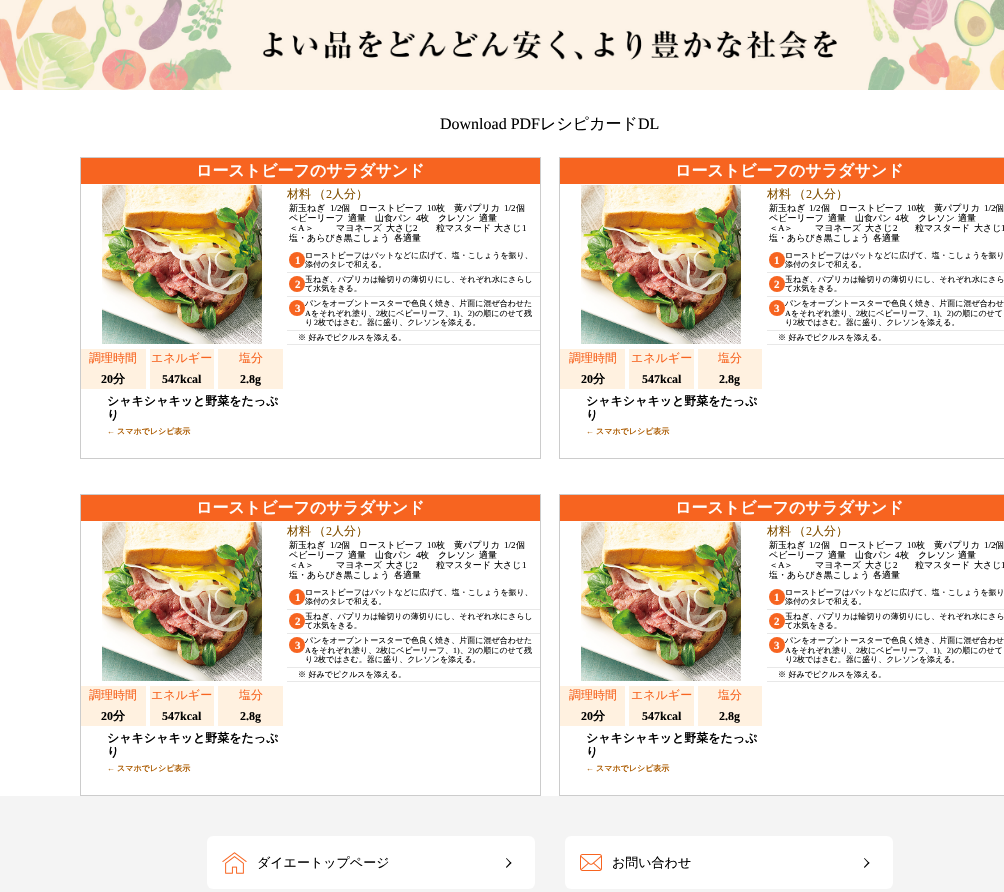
static SkFont makeFont(const char* family, int weight, float size, bool italic = false) {
  SkFontStyle style(weight, SkFontStyle::kNormal_Width,
    italic ? SkFontStyle::kItalic_Slant : SkFontStyle::kUpright_Slant);
  SkFont result(fontMgr->matchFamilyStyle(family, style), size);
  result.setSubpixel(true);
  return result;
}

static void text(SkCanvas* c, const char* s, float x, float y, const SkFont& font, SkColor color) {
  SkPaint ink(SkColor4f::FromColor(color));
  ink.setAntiAlias(true);
  c->drawString(s, x, y, font, ink);
}

static void spacedText(SkCanvas* c, const char* s, float x, float y, const SkFont& font, const SkPaint& ink, float letter, float word) {
  std::vector<SkGlyphID> glyphs(font.countText(s, strlen(s), SkTextEncoding::kUTF8));
  std::vector<float> xs(glyphs.size());
  font.textToGlyphs(s, strlen(s), SkTextEncoding::kUTF8, glyphs);
  font.getXPos(glyphs, xs, x);
  float extra = 0;
  for (size_t i = 0; i < glyphs.size(); i++) {
    xs[i] += extra;
    extra += letter + word * (glyphs[i] == font.unicharToGlyph(' '));
  }
  c->drawTextBlob(SkTextBlob::MakeFromPosHGlyphs(glyphs, xs, y, font), 0, 0, ink);
}

static void box(SkCanvas* c, float l, float t, float r, float b, SkColor color) {
  SkPaint ink(SkColor4f::FromColor(color));
  ink.setAntiAlias(true);
  c->drawRect(SkRect::MakeLTRB(l, t, r, b), ink);
}

static void roundBox(SkCanvas* c, float l, float t, float r, float b, float radius, SkColor color) {
  SkPaint ink(SkColor4f::FromColor(color));
  ink.setAntiAlias(true);
  c->drawRoundRect(SkRect::MakeLTRB(l, t, r, b), radius, radius, ink);
}

static void picture(SkCanvas* c, const char* path, float l, float t, float r, float b) {
  auto image = SkImages::DeferredFromEncodedData(SkData::MakeFromFileName(path));
  c->drawImageRect(image, SkRect::MakeLTRB(l, t, r, b), SkSamplingOptions());
}

void draw(SkCanvas* c) {
  SkPaint paint;
  paint.setAntiAlias(true);
  c->clear(0xffffffff);
  picture(c, "img_01.png", 0, 0, 1004, 90);
  SkFont face1 = makeFont("Liberation Serif", 400, 16);
  text(c, "Download PDF", 440, 129, face1, 0xff000000);
  SkFont face2 = makeFont("WenQuanYi Zen Hei", 500, 16);
  text(c, "レシピカード", 540, 129, face2, 0xff000000);
  text(c, "DL", 638, 129, face1, 0xff000000);
  paint.setStyle(SkPaint::kStroke_Style);
  paint.setStrokeWidth(1);
  paint.setColor(0xffcccccc);
  c->drawRect(SkRect::MakeLTRB(80.5f, 157.5f, 540.5f, 458.5f), paint);
  box(c, 81, 158, 540, 184, 0xfff76420);
  SkFont face3 = makeFont("WenQuanYi Zen Hei", 700, 16);
  text(c, "ローストビーフのサラダサンド", 196, 176, face3, 0xffffffff);
  SkFont face4 = makeFont("WenQuanYi Zen Hei", 500, 12);
  paint.setStyle(SkPaint::kFill_Style);
  paint.setColor(0xff825000);
  spacedText(c, "材料 （", 287, 198, face4, paint, 0, -1);
  SkFont face5 = makeFont("Liberation Serif", 400, 12);
  text(c, "2", 326, 198, face5, 0xff825000);
  text(c, "人分）", 332, 198, face4, 0xff825000);
  SkFont face6 = makeFont("WenQuanYi Zen Hei", 500, 9);
  text(c, "新玉ねぎ", 289, 211, face6, 0xff000000);
  SkFont face7 = makeFont("Liberation Serif", 400, 9);
  text(c, "1/2", 330, 211, face7, 0xff000000);
  text(c, "個", 341, 211, face6, 0xff000000);
  text(c, "ローストビーフ", 359, 211, face6, 0xff000000);
  text(c, "10", 427, 211, face7, 0xff000000);
  text(c, "枚", 436, 211, face6, 0xff000000);
  text(c, "黄パプリカ", 454, 211, face6, 0xff000000);
  text(c, "1/2", 504, 211, face7, 0xff000000);
  text(c, "個", 516, 211, face6, 0xff000000);
  text(c, "ベビーリーフ", 289, 221, face6, 0xff000000);
  text(c, "適量", 348, 221, face6, 0xff000000);
  text(c, "山食パン", 375, 221, face6, 0xff000000);
  text(c, "4", 416, 221, face7, 0xff000000);
  text(c, "枚", 420, 221, face6, 0xff000000);
  text(c, "クレソン", 438, 221, face6, 0xff000000);
  text(c, "適量", 479, 221, face6, 0xff000000);
  text(c, "＜", 289, 231, face6, 0xff000000);
  text(c, "A", 298, 231, face7, 0xff000000);
  text(c, "＞", 305, 231, face6, 0xff000000);
  text(c, "マヨネーズ", 336, 231, face6, 0xff000000);
  text(c, "大さじ", 386, 231, face6, 0xff000000);
  text(c, "2", 413, 231, face7, 0xff000000);
  text(c, "粒マスタード", 436, 231, face6, 0xff000000);
  text(c, "大さじ", 494, 231, face6, 0xff000000);
  text(c, "1", 522, 231, face7, 0xff000000);
  text(c, "塩・あらびき黒こしょう", 289, 241, face6, 0xff000000);
  text(c, "各適量", 394, 241, face6, 0xff000000);
  box(c, 287, 272, 540, 273, 0xffe8e8e8);
  paint.setColor(0xfff76420);
  c->drawCircle(297, 260, 8, paint);
  SkFont face8 = makeFont("Liberation Serif", 700, 11);
  text(c, "1", 295, 264, face8, 0xffffffff);
  SkFont face9 = makeFont("WenQuanYi Zen Hei", 500, 8);
  text(c, "ローストビーフはバットなどに広げて、塩・こしょうを振り、", 305, 258, face9, 0xff000000);
  text(c, "添付のタレで和える。", 305, 267, face9, 0xff000000);
  box(c, 287, 296, 540, 297, 0xffe8e8e8);
  c->drawCircle(297, 284, 8, paint);
  text(c, "2", 295, 288, face8, 0xffffffff);
  text(c, "玉ねぎ、パプリカは輪切りの薄切りにし、それぞれ水にさらし", 305, 282, face9, 0xff000000);
  text(c, "て水気をきる。", 305, 291, face9, 0xff000000);
  box(c, 287, 330, 540, 331, 0xffe8e8e8);
  c->drawCircle(297, 308, 8, paint);
  text(c, "3", 295, 312, face8, 0xffffffff);
  text(c, "パンをオーブントースターで色良く焼き、片面に混ぜ合わせた", 305, 306, face9, 0xff000000);
  SkFont face10 = makeFont("Liberation Serif", 400, 8);
  text(c, "A", 305, 316, face10, 0xff000000);
  text(c, "をそれぞれ塗り、", 311, 316, face9, 0xff000000);
  text(c, "2", 376, 316, face10, 0xff000000);
  text(c, "枚にベビーリーフ、", 380, 316, face9, 0xff000000);
  text(c, "1)", 453, 316, face10, 0xff000000);
  text(c, "、", 460, 316, face9, 0xff000000);
  text(c, "2)", 468, 316, face10, 0xff000000);
  text(c, "の順にのせて残", 475, 316, face9, 0xff000000);
  text(c, "り", 305, 325, face9, 0xff000000);
  text(c, "2", 314, 325, face10, 0xff000000);
  text(c, "枚ではさむ。器に盛り、クレソンを添える。", 318, 325, face9, 0xff000000);
  box(c, 287, 344, 540, 345, 0xffe8e8e8);
  text(c, "※ 好みでピクルスを添える。", 298, 340, face9, 0xff000000);
  picture(c, "img_02.png", 102, 185, 262, 344);
  box(c, 81, 349, 146, 389, 0xfffff1e0);
  text(c, "調理時間", 89, 362, face4, 0xfff76420);
  SkFont face11 = makeFont("Liberation Serif", 700, 12);
  text(c, "20", 101, 383, face11, 0xff000000);
  SkFont face12 = makeFont("WenQuanYi Zen Hei", 700, 12);
  text(c, "分", 113, 383, face12, 0xff000000);
  box(c, 150, 349, 214, 389, 0xfffff1e0);
  text(c, "エネルギー", 151, 362, face4, 0xfff76420);
  text(c, "547kcal", 162, 383, face11, 0xff000000);
  box(c, 218, 349, 283, 389, 0xfffff1e0);
  text(c, "塩分", 239, 362, face4, 0xfff76420);
  text(c, "2.8g", 240, 383, face11, 0xff000000);
  text(c, "シャキシャキッと野菜をたっぷ", 107, 405, face12, 0xff000000);
  text(c, "り", 107, 419, face12, 0xff000000);
  SkFont face13 = makeFont("Liberation Serif", 700, 8);
  text(c, "←", 107, 434, face13, 0xffac5b00);
  SkFont face14 = makeFont("WenQuanYi Zen Hei", 700, 8);
  text(c, "スマホでレシピ表示", 117, 434, face14, 0xffac5b00);
  paint.setStyle(SkPaint::kStroke_Style);
  paint.setColor(0xffcccccc);
  c->drawRect(SkRect::MakeLTRB(559.5f, 157.5f, 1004.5f, 458.5f), paint);
  box(c, 560, 158, 1004, 184, 0xfff76420);
  text(c, "ローストビーフのサラダサンド", 675, 176, face3, 0xffffffff);
  paint.setStyle(SkPaint::kFill_Style);
  paint.setColor(0xff825000);
  spacedText(c, "材料 （", 767, 198, face4, paint, 0, -1);
  text(c, "2", 806, 198, face5, 0xff825000);
  text(c, "人分）", 812, 198, face4, 0xff825000);
  text(c, "新玉ねぎ", 769, 211, face6, 0xff000000);
  text(c, "1/2", 809, 211, face7, 0xff000000);
  text(c, "個", 821, 211, face6, 0xff000000);
  text(c, "ローストビーフ", 839, 211, face6, 0xff000000);
  text(c, "10", 907, 211, face7, 0xff000000);
  text(c, "枚", 916, 211, face6, 0xff000000);
  text(c, "黄パプリカ", 934, 211, face6, 0xff000000);
  text(c, "1/2", 984, 211, face7, 0xff000000);
  text(c, "個", 995, 211, face6, 0xff000000);
  text(c, "ベビーリーフ", 769, 221, face6, 0xff000000);
  text(c, "適量", 828, 221, face6, 0xff000000);
  text(c, "山食パン", 855, 221, face6, 0xff000000);
  text(c, "4", 895, 221, face7, 0xff000000);
  text(c, "枚", 900, 221, face6, 0xff000000);
  text(c, "クレソン", 918, 221, face6, 0xff000000);
  text(c, "適量", 958, 221, face6, 0xff000000);
  text(c, "＜", 769, 231, face6, 0xff000000);
  text(c, "A", 778, 231, face7, 0xff000000);
  text(c, "＞", 784, 231, face6, 0xff000000);
  text(c, "マヨネーズ", 815, 231, face6, 0xff000000);
  text(c, "大さじ", 865, 231, face6, 0xff000000);
  text(c, "2", 893, 231, face7, 0xff000000);
  text(c, "粒マスタード", 915, 231, face6, 0xff000000);
  text(c, "大さじ", 974, 231, face6, 0xff000000);
  text(c, "1", 1001, 231, face7, 0xff000000);
  text(c, "塩・あらびき黒こしょう", 769, 241, face6, 0xff000000);
  text(c, "各適量", 873, 241, face6, 0xff000000);
  box(c, 767, 272, 1004, 273, 0xffe8e8e8);
  paint.setColor(0xfff76420);
  c->drawCircle(777, 260, 8, paint);
  text(c, "1", 774, 264, face8, 0xffffffff);
  text(c, "ローストビーフはバットなどに広げて、塩・こしょうを振り", 785, 258, face9, 0xff000000);
  text(c, "添付のタレで和える。", 785, 267, face9, 0xff000000);
  box(c, 767, 296, 1004, 297, 0xffe8e8e8);
  c->drawCircle(777, 284, 8, paint);
  text(c, "2", 774, 288, face8, 0xffffffff);
  text(c, "玉ねぎ、パプリカは輪切りの薄切りにし、それぞれ水にさら", 785, 282, face9, 0xff000000);
  text(c, "て水気をきる。", 785, 291, face9, 0xff000000);
  box(c, 767, 330, 1004, 331, 0xffe8e8e8);
  c->drawCircle(777, 308, 8, paint);
  text(c, "3", 774, 312, face8, 0xffffffff);
  text(c, "パンをオーブントースターで色良く焼き、片面に混ぜ合わせ", 785, 306, face9, 0xff000000);
  text(c, "A", 785, 316, face10, 0xff000000);
  text(c, "をそれぞれ塗り、", 791, 316, face9, 0xff000000);
  text(c, "2", 856, 316, face10, 0xff000000);
  text(c, "枚にベビーリーフ、", 860, 316, face9, 0xff000000);
  text(c, "1)", 933, 316, face10, 0xff000000);
  text(c, "、", 939, 316, face9, 0xff000000);
  text(c, "2)", 947, 316, face10, 0xff000000);
  text(c, "の順にのせて", 954, 316, face9, 0xff000000);
  text(c, "り", 785, 325, face9, 0xff000000);
  text(c, "2", 793, 325, face10, 0xff000000);
  text(c, "枚ではさむ。器に盛り、クレソンを添える。", 797, 325, face9, 0xff000000);
  box(c, 767, 344, 1004, 345, 0xffe8e8e8);
  text(c, "※ 好みでピクルスを添える。", 778, 340, face9, 0xff000000);
  picture(c, "img_02.png", 581, 185, 741, 344);
  box(c, 560, 349, 625, 389, 0xfffff1e0);
  text(c, "調理時間", 569, 362, face4, 0xfff76420);
  text(c, "20", 581, 383, face11, 0xff000000);
  text(c, "分", 593, 383, face12, 0xff000000);
  box(c, 629, 349, 694, 389, 0xfffff1e0);
  text(c, "エネルギー", 631, 362, face4, 0xfff76420);
  text(c, "547kcal", 642, 383, face11, 0xff000000);
  box(c, 698, 349, 762, 389, 0xfffff1e0);
  text(c, "塩分", 718, 362, face4, 0xfff76420);
  text(c, "2.8g", 719, 383, face11, 0xff000000);
  text(c, "シャキシャキッと野菜をたっぷ", 586, 405, face12, 0xff000000);
  text(c, "り", 586, 419, face12, 0xff000000);
  text(c, "←", 586, 434, face13, 0xffac5b00);
  text(c, "スマホでレシピ表示", 596, 434, face14, 0xffac5b00);
  paint.setStyle(SkPaint::kStroke_Style);
  paint.setColor(0xffcccccc);
  c->drawRect(SkRect::MakeLTRB(80.5f, 494.5f, 540.5f, 795.5f), paint);
  box(c, 81, 495, 540, 521, 0xfff76420);
  text(c, "ローストビーフのサラダサンド", 196, 513, face3, 0xffffffff);
  paint.setStyle(SkPaint::kFill_Style);
  paint.setColor(0xff825000);
  spacedText(c, "材料 （", 287, 535, face4, paint, 0, -1);
  text(c, "2", 326, 535, face5, 0xff825000);
  text(c, "人分）", 332, 535, face4, 0xff825000);
  text(c, "新玉ねぎ", 289, 548, face6, 0xff000000);
  text(c, "1/2", 330, 548, face7, 0xff000000);
  text(c, "個", 341, 548, face6, 0xff000000);
  text(c, "ローストビーフ", 359, 548, face6, 0xff000000);
  text(c, "10", 427, 548, face7, 0xff000000);
  text(c, "枚", 436, 548, face6, 0xff000000);
  text(c, "黄パプリカ", 454, 548, face6, 0xff000000);
  text(c, "1/2", 504, 548, face7, 0xff000000);
  text(c, "個", 516, 548, face6, 0xff000000);
  text(c, "ベビーリーフ", 289, 558, face6, 0xff000000);
  text(c, "適量", 348, 558, face6, 0xff000000);
  text(c, "山食パン", 375, 558, face6, 0xff000000);
  text(c, "4", 416, 558, face7, 0xff000000);
  text(c, "枚", 420, 558, face6, 0xff000000);
  text(c, "クレソン", 438, 558, face6, 0xff000000);
  text(c, "適量", 479, 558, face6, 0xff000000);
  text(c, "＜", 289, 568, face6, 0xff000000);
  text(c, "A", 298, 568, face7, 0xff000000);
  text(c, "＞", 305, 568, face6, 0xff000000);
  text(c, "マヨネーズ", 336, 568, face6, 0xff000000);
  text(c, "大さじ", 386, 568, face6, 0xff000000);
  text(c, "2", 413, 568, face7, 0xff000000);
  text(c, "粒マスタード", 436, 568, face6, 0xff000000);
  text(c, "大さじ", 494, 568, face6, 0xff000000);
  text(c, "1", 522, 568, face7, 0xff000000);
  text(c, "塩・あらびき黒こしょう", 289, 578, face6, 0xff000000);
  text(c, "各適量", 394, 578, face6, 0xff000000);
  box(c, 287, 609, 540, 610, 0xffe8e8e8);
  paint.setColor(0xfff76420);
  c->drawCircle(297, 597, 8, paint);
  text(c, "1", 295, 601, face8, 0xffffffff);
  text(c, "ローストビーフはバットなどに広げて、塩・こしょうを振り、", 305, 595, face9, 0xff000000);
  text(c, "添付のタレで和える。", 305, 604, face9, 0xff000000);
  box(c, 287, 633, 540, 634, 0xffe8e8e8);
  c->drawCircle(297, 621, 8, paint);
  text(c, "2", 295, 625, face8, 0xffffffff);
  text(c, "玉ねぎ、パプリカは輪切りの薄切りにし、それぞれ水にさらし", 305, 619, face9, 0xff000000);
  text(c, "て水気をきる。", 305, 628, face9, 0xff000000);
  box(c, 287, 667, 540, 668, 0xffe8e8e8);
  c->drawCircle(297, 645, 8, paint);
  text(c, "3", 295, 649, face8, 0xffffffff);
  text(c, "パンをオーブントースターで色良く焼き、片面に混ぜ合わせた", 305, 643, face9, 0xff000000);
  text(c, "A", 305, 653, face10, 0xff000000);
  text(c, "をそれぞれ塗り、", 311, 653, face9, 0xff000000);
  text(c, "2", 376, 653, face10, 0xff000000);
  text(c, "枚にベビーリーフ、", 380, 653, face9, 0xff000000);
  text(c, "1)", 453, 653, face10, 0xff000000);
  text(c, "、", 460, 653, face9, 0xff000000);
  text(c, "2)", 468, 653, face10, 0xff000000);
  text(c, "の順にのせて残", 475, 653, face9, 0xff000000);
  text(c, "り", 305, 662, face9, 0xff000000);
  text(c, "2", 314, 662, face10, 0xff000000);
  text(c, "枚ではさむ。器に盛り、クレソンを添える。", 318, 662, face9, 0xff000000);
  box(c, 287, 681, 540, 682, 0xffe8e8e8);
  text(c, "※ 好みでピクルスを添える。", 298, 677, face9, 0xff000000);
  picture(c, "img_02.png", 102, 522, 262, 681);
  box(c, 81, 686, 146, 726, 0xfffff1e0);
  text(c, "調理時間", 89, 699, face4, 0xfff76420);
  text(c, "20", 101, 720, face11, 0xff000000);
  text(c, "分", 113, 720, face12, 0xff000000);
  box(c, 150, 686, 214, 726, 0xfffff1e0);
  text(c, "エネルギー", 151, 699, face4, 0xfff76420);
  text(c, "547kcal", 162, 720, face11, 0xff000000);
  box(c, 218, 686, 283, 726, 0xfffff1e0);
  text(c, "塩分", 239, 699, face4, 0xfff76420);
  text(c, "2.8g", 240, 720, face11, 0xff000000);
  text(c, "シャキシャキッと野菜をたっぷ", 107, 742, face12, 0xff000000);
  text(c, "り", 107, 756, face12, 0xff000000);
  text(c, "←", 107, 771, face13, 0xffac5b00);
  text(c, "スマホでレシピ表示", 117, 771, face14, 0xffac5b00);
  paint.setStyle(SkPaint::kStroke_Style);
  paint.setColor(0xffcccccc);
  c->drawRect(SkRect::MakeLTRB(559.5f, 494.5f, 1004.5f, 795.5f), paint);
  box(c, 560, 495, 1004, 521, 0xfff76420);
  text(c, "ローストビーフのサラダサンド", 675, 513, face3, 0xffffffff);
  paint.setStyle(SkPaint::kFill_Style);
  paint.setColor(0xff825000);
  spacedText(c, "材料 （", 767, 535, face4, paint, 0, -1);
  text(c, "2", 806, 535, face5, 0xff825000);
  text(c, "人分）", 812, 535, face4, 0xff825000);
  text(c, "新玉ねぎ", 769, 548, face6, 0xff000000);
  text(c, "1/2", 809, 548, face7, 0xff000000);
  text(c, "個", 821, 548, face6, 0xff000000);
  text(c, "ローストビーフ", 839, 548, face6, 0xff000000);
  text(c, "10", 907, 548, face7, 0xff000000);
  text(c, "枚", 916, 548, face6, 0xff000000);
  text(c, "黄パプリカ", 934, 548, face6, 0xff000000);
  text(c, "1/2", 984, 548, face7, 0xff000000);
  text(c, "個", 995, 548, face6, 0xff000000);
  text(c, "ベビーリーフ", 769, 558, face6, 0xff000000);
  text(c, "適量", 828, 558, face6, 0xff000000);
  text(c, "山食パン", 855, 558, face6, 0xff000000);
  text(c, "4", 895, 558, face7, 0xff000000);
  text(c, "枚", 900, 558, face6, 0xff000000);
  text(c, "クレソン", 918, 558, face6, 0xff000000);
  text(c, "適量", 958, 558, face6, 0xff000000);
  text(c, "＜", 769, 568, face6, 0xff000000);
  text(c, "A", 778, 568, face7, 0xff000000);
  text(c, "＞", 784, 568, face6, 0xff000000);
  text(c, "マヨネーズ", 815, 568, face6, 0xff000000);
  text(c, "大さじ", 865, 568, face6, 0xff000000);
  text(c, "2", 893, 568, face7, 0xff000000);
  text(c, "粒マスタード", 915, 568, face6, 0xff000000);
  text(c, "大さじ", 974, 568, face6, 0xff000000);
  text(c, "1", 1001, 568, face7, 0xff000000);
  text(c, "塩・あらびき黒こしょう", 769, 578, face6, 0xff000000);
  text(c, "各適量", 873, 578, face6, 0xff000000);
  box(c, 767, 609, 1004, 610, 0xffe8e8e8);
  paint.setColor(0xfff76420);
  c->drawCircle(777, 597, 8, paint);
  text(c, "1", 774, 601, face8, 0xffffffff);
  text(c, "ローストビーフはバットなどに広げて、塩・こしょうを振り", 785, 595, face9, 0xff000000);
  text(c, "添付のタレで和える。", 785, 604, face9, 0xff000000);
  box(c, 767, 633, 1004, 634, 0xffe8e8e8);
  c->drawCircle(777, 621, 8, paint);
  text(c, "2", 774, 625, face8, 0xffffffff);
  text(c, "玉ねぎ、パプリカは輪切りの薄切りにし、それぞれ水にさら", 785, 619, face9, 0xff000000);
  text(c, "て水気をきる。", 785, 628, face9, 0xff000000);
  box(c, 767, 667, 1004, 668, 0xffe8e8e8);
  c->drawCircle(777, 645, 8, paint);
  text(c, "3", 774, 649, face8, 0xffffffff);
  text(c, "パンをオーブントースターで色良く焼き、片面に混ぜ合わせ", 785, 643, face9, 0xff000000);
  text(c, "A", 785, 653, face10, 0xff000000);
  text(c, "をそれぞれ塗り、", 791, 653, face9, 0xff000000);
  text(c, "2", 856, 653, face10, 0xff000000);
  text(c, "枚にベビーリーフ、", 860, 653, face9, 0xff000000);
  text(c, "1)", 933, 653, face10, 0xff000000);
  text(c, "、", 939, 653, face9, 0xff000000);
  text(c, "2)", 947, 653, face10, 0xff000000);
  text(c, "の順にのせて", 954, 653, face9, 0xff000000);
  text(c, "り", 785, 662, face9, 0xff000000);
  text(c, "2", 793, 662, face10, 0xff000000);
  text(c, "枚ではさむ。器に盛り、クレソンを添える。", 797, 662, face9, 0xff000000);
  box(c, 767, 681, 1004, 682, 0xffe8e8e8);
  text(c, "※ 好みでピクルスを添える。", 778, 677, face9, 0xff000000);
  picture(c, "img_02.png", 581, 522, 741, 681);
  box(c, 560, 686, 625, 726, 0xfffff1e0);
  text(c, "調理時間", 569, 699, face4, 0xfff76420);
  text(c, "20", 581, 720, face11, 0xff000000);
  text(c, "分", 593, 720, face12, 0xff000000);
  box(c, 629, 686, 694, 726, 0xfffff1e0);
  text(c, "エネルギー", 631, 699, face4, 0xfff76420);
  text(c, "547kcal", 642, 720, face11, 0xff000000);
  box(c, 698, 686, 762, 726, 0xfffff1e0);
  text(c, "塩分", 718, 699, face4, 0xfff76420);
  text(c, "2.8g", 719, 720, face11, 0xff000000);
  text(c, "シャキシャキッと野菜をたっぷ", 586, 742, face12, 0xff000000);
  text(c, "り", 586, 756, face12, 0xff000000);
  text(c, "←", 586, 771, face13, 0xffac5b00);
  text(c, "スマホでレシピ表示", 596, 771, face14, 0xffac5b00);
  box(c, 0, 796, 1004, 892, 0xfff4f4f4);
  roundBox(c, 207, 836, 535, 889, 6, 0xffffffff);
  picture(c, "img_03.png", 222, 852, 247, 874);
  SkFont face15 = makeFont("WenQuanYi Zen Hei", 500, 13);
  text(c, "ダイエートップページ", 257, 867, face15, 0xff000000);
  paint.setColor(0xff000000);
  c->drawPath(SkPathBuilder().moveTo(506, 858.5f).lineTo(506.5f, 858).lineTo(511.5f, 863).lineTo(510.5f, 863.5f).close().detach(), paint);
  c->drawPath(SkPathBuilder().moveTo(506, 867).lineTo(510.5f, 862).lineTo(511.5f, 863).lineTo(506.5f, 868).close().detach(), paint);
  roundBox(c, 565, 836, 893, 889, 6, 0xffffffff);
  picture(c, "img_04.png", 580, 854, 602, 871);
  text(c, "お問い合わせ", 612, 867, face15, 0xff000000);
  c->drawPath(SkPathBuilder().moveTo(864, 858.5f).lineTo(864.5f, 858).lineTo(869.5f, 863).lineTo(868.5f, 863.5f).close().detach(), paint);
  c->drawPath(SkPathBuilder().moveTo(864, 867).lineTo(868.5f, 862).lineTo(869.5f, 863).lineTo(864.5f, 868).close().detach(), paint);
}
